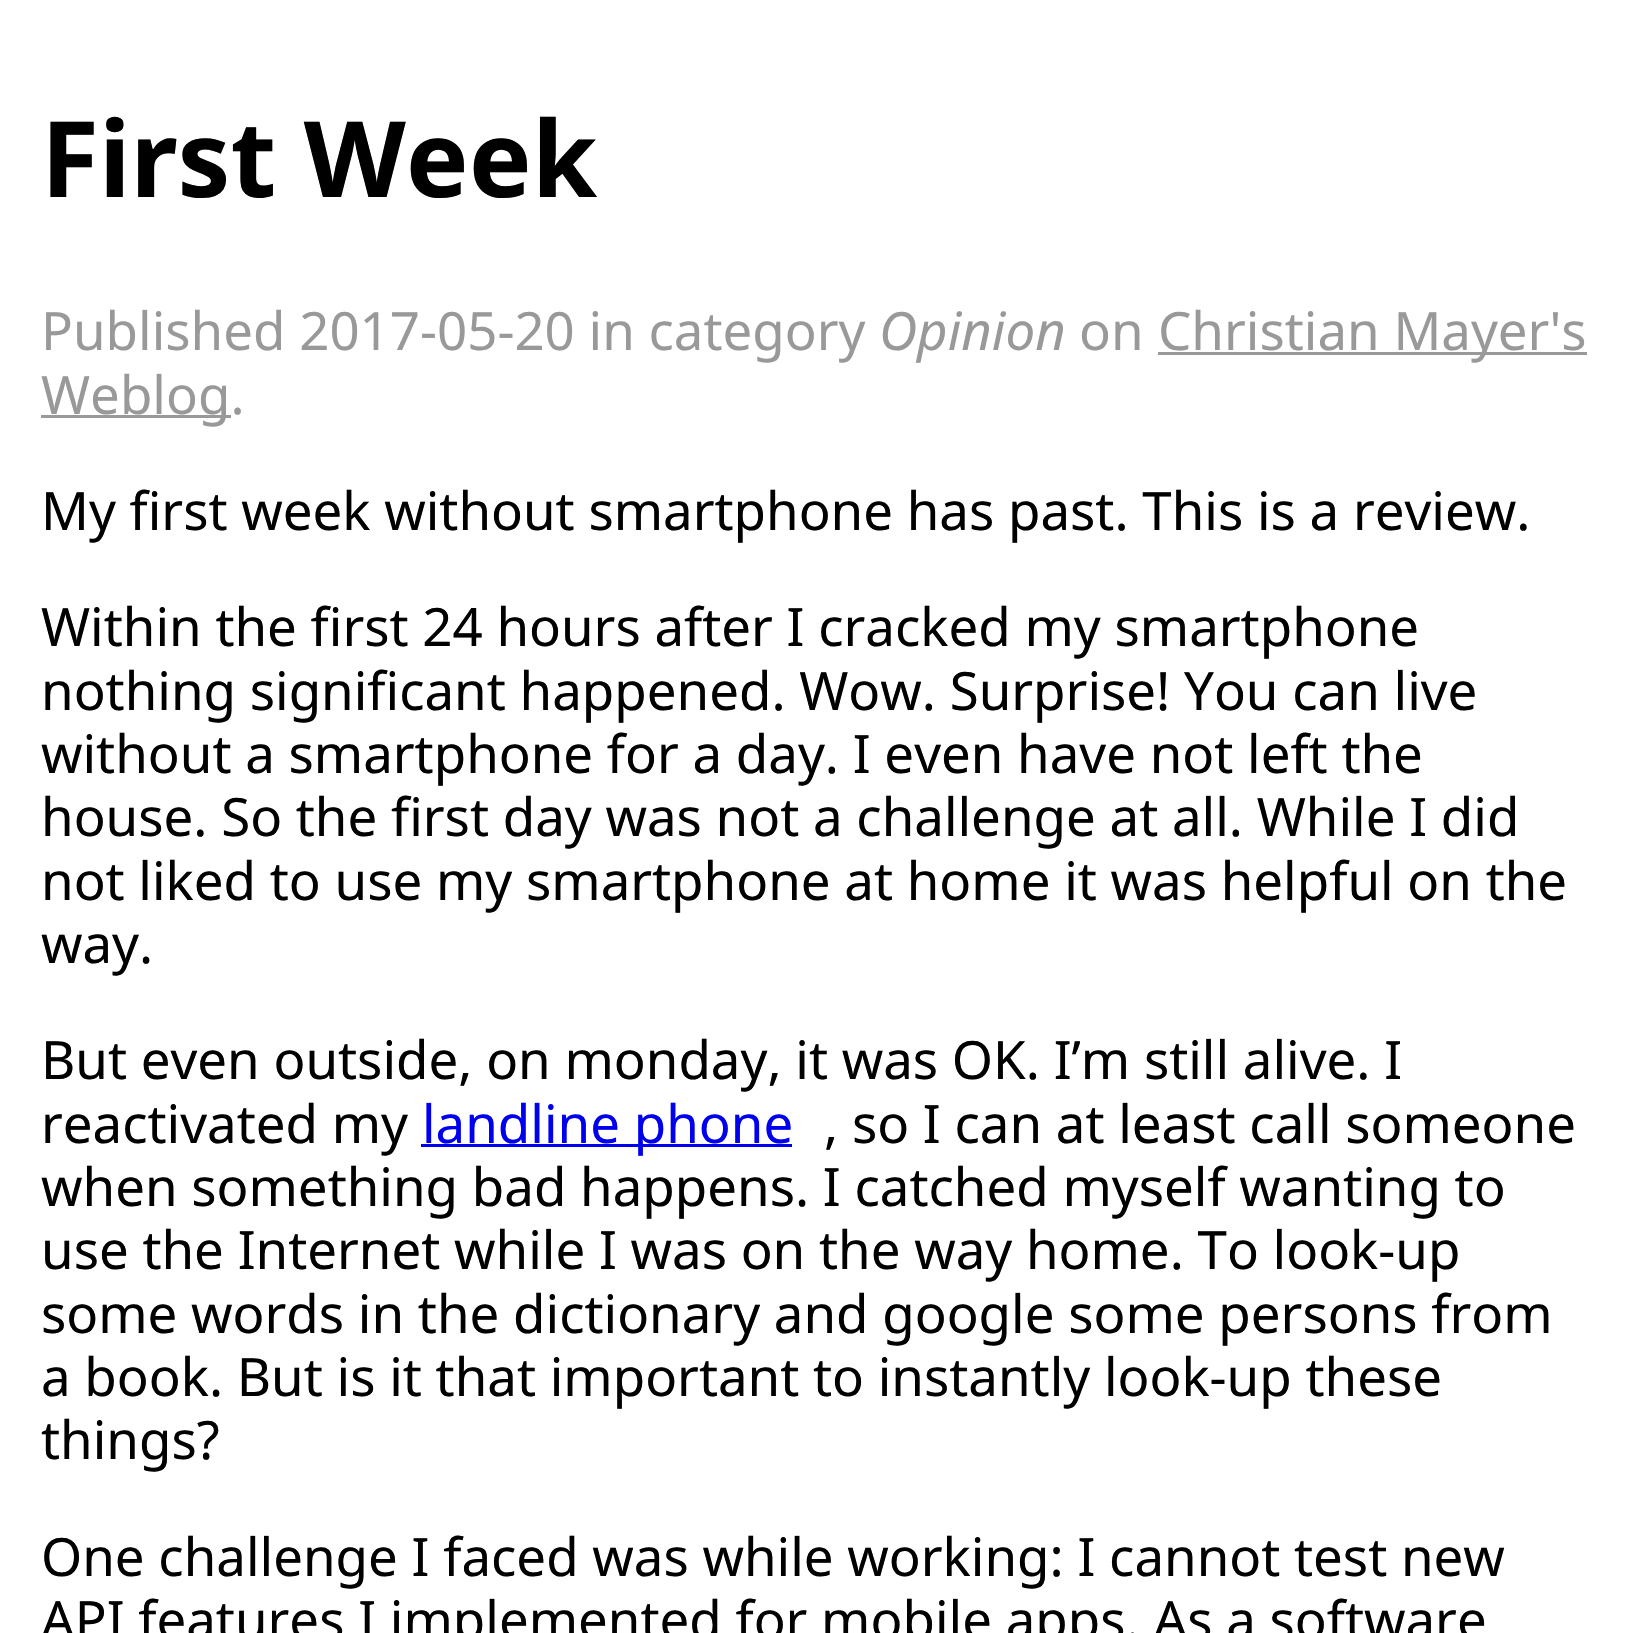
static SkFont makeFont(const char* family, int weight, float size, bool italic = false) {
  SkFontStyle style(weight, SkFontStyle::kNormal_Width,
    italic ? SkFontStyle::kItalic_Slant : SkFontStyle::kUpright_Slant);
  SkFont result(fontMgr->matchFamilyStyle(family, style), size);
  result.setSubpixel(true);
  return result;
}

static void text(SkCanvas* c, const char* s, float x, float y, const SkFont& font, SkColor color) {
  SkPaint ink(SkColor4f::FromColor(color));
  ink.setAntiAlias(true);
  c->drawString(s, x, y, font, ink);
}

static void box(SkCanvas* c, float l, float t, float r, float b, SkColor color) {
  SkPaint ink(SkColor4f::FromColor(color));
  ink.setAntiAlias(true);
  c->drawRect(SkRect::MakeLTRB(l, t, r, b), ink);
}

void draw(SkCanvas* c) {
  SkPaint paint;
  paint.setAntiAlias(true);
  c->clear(0xffffffff);
  SkFont face1 = makeFont("Noto Sans", 700, 105.5f);
  text(c, "First Week", 41, 197, face1, 0xff000000);
  SkFont face2 = makeFont("Noto Sans", 400, 52.8f);
  text(c, "Published 2017-05-20 in category", 41, 350, face2, 0xff999999);
  SkFont face3 = makeFont("Noto Sans", 400, 52.8f, true);
  text(c, "Opinion", 879, 350, face3, 0xff999999);
  text(c, "on", 1079, 350, face2, 0xff999999);
  box(c, 1158, 352, 1587, 355, 0xff999999);
  text(c, "Christian Mayer's", 1158, 350, face2, 0xff999999);
  box(c, 41, 415, 231, 418, 0xff999999);
  text(c, "Weblog.", 41, 414, face2, 0xff999999);
  text(c, "My first week without smartphone has past. This is a review.", 41, 530, face2, 0xff000000);
  text(c, "Within the first 24 hours after I cracked my smartphone", 41, 646, face2, 0xff000000);
  text(c, "nothing significant happened. Wow. Surprise! You can live", 41, 710, face2, 0xff000000);
  text(c, "without a smartphone for a day. I even have not left the", 41, 773, face2, 0xff000000);
  text(c, "house. So the first day was not a challenge at all. While I did", 41, 836, face2, 0xff000000);
  text(c, "not liked to use my smartphone at home it was helpful on the", 41, 900, face2, 0xff000000);
  text(c, "way.", 41, 963, face2, 0xff000000);
  text(c, "But even outside, on monday, it was OK. I’m still alive. I", 41, 1079, face2, 0xff000000);
  text(c, "reactivated my", 41, 1143, face2, 0xff000000);
  box(c, 421, 1144, 792, 1147, 0xff0000ee);
  text(c, "landline phone", 422, 1143, face2, 0xff0000ee);
  text(c, ", so I can at least call someone", 824, 1143, face2, 0xff000000);
  text(c, "when something bad happens. I catched myself wanting to", 41, 1206, face2, 0xff000000);
  text(c, "use the Internet while I was on the way home. To look-up", 41, 1269, face2, 0xff000000);
  text(c, "some words in the dictionary and google some persons from", 41, 1333, face2, 0xff000000);
  text(c, "a book. But is it that important to instantly look-up these", 41, 1396, face2, 0xff000000);
  text(c, "things?", 41, 1459, face2, 0xff000000);
  text(c, "One challenge I faced was while working: I cannot test new", 41, 1576, face2, 0xff000000);
  text(c, "API features I implemented for mobile apps. As a software", 41, 1639, face2, 0xff000000);
}
